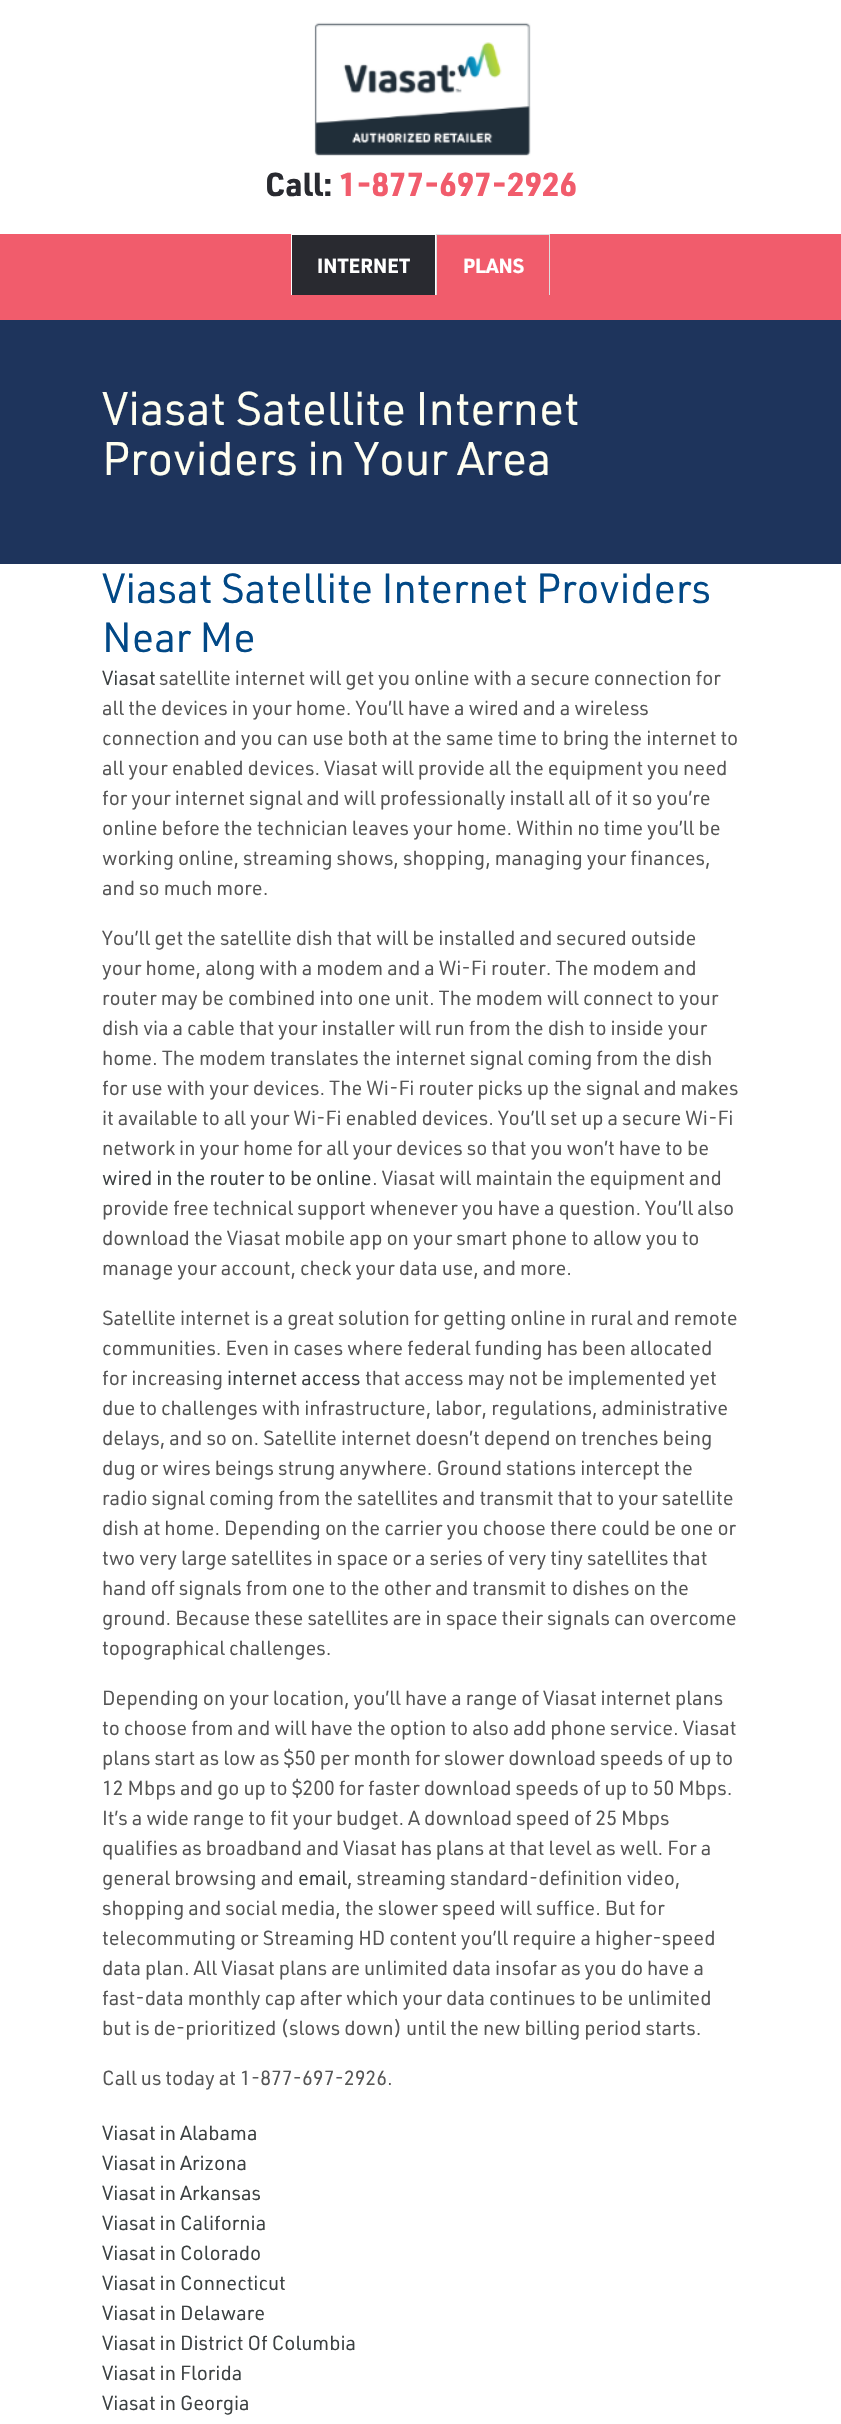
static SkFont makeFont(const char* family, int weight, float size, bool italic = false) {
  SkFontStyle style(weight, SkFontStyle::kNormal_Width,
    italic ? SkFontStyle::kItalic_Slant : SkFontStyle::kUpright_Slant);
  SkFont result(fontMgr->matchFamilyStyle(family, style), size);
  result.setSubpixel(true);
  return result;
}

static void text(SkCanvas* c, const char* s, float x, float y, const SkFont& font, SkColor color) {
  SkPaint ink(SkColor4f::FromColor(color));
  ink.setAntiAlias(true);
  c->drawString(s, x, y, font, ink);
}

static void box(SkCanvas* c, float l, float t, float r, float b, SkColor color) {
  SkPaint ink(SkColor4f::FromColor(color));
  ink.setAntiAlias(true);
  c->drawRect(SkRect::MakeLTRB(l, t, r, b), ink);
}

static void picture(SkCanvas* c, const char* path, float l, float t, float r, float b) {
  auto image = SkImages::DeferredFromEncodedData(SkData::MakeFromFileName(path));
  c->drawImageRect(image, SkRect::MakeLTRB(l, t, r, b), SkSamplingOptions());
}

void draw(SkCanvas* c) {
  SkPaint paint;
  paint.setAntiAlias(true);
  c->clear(0xffffffff);
  picture(c, "img_01.png", 314, 22, 531, 156);
  SkFont face1 = makeFont("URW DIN", 700, 32.5f);
  text(c, "Call:", 265, 196, face1, 0xff292a30);
  text(c, "1-877-697-2926", 339, 196, face1, 0xfff15c6c);
  box(c, 0, 234, 841, 320, 0xfff15c6c);
  box(c, 292, 235, 435, 295, 0xff292a30);
  box(c, 291, 234, 436, 235, 0xffffffff);
  box(c, 435, 234, 436, 295, 0xffffffff);
  box(c, 291, 234, 292, 295, 0xffffffff);
  SkFont face2 = makeFont("URW DIN", 700, 20);
  text(c, "INTERNET", 317, 273, face2, 0xffffffff);
  box(c, 436, 234, 550, 235, 0xffdddddd);
  box(c, 549, 234, 550, 295, 0xffdddddd);
  box(c, 436, 234, 437, 295, 0xffdddddd);
  text(c, "PLANS", 463, 273, face2, 0xffffffff);
  box(c, 0, 320, 841, 564, 0xff1e345c);
  SkFont face3 = makeFont("URW DIN", 400, 46.25f);
  text(c, "Viasat Satellite Internet", 102, 425, face3, 0xfffffff0);
  text(c, "Providers in Your Area", 102, 475, face3, 0xfffffff0);
  SkFont face4 = makeFont("URW DIN", 400, 41.25f);
  text(c, "Viasat Satellite Internet Providers", 102, 603, face4, 0xff014886);
  text(c, "Near Me", 102, 652, face4, 0xff014886);
  SkFont face5 = makeFont("URW DIN", 400, 20);
  text(c, "Viasat", 102, 685, face5, 0xff3c4142);
  text(c, "satellite internet will get you online with a secure connection for", 159, 685, face5, 0xff565656);
  text(c, "all the devices in your home. You’ll have a wired and a wireless", 102, 715, face5, 0xff565656);
  text(c, "connection and you can use both at the same time to bring the internet to", 102, 745, face5, 0xff565656);
  text(c, "all your enabled devices. Viasat will provide all the equipment you need", 102, 775, face5, 0xff565656);
  text(c, "for your internet signal and will professionally install all of it so you’re", 102, 805, face5, 0xff565656);
  text(c, "online before the technician leaves your home. Within no time you’ll be", 102, 835, face5, 0xff565656);
  text(c, "working online, streaming shows, shopping, managing your finances,", 102, 865, face5, 0xff565656);
  text(c, "and so much more.", 102, 895, face5, 0xff565656);
  text(c, "You’ll get the satellite dish that will be installed and secured outside", 102, 945, face5, 0xff565656);
  text(c, "your home, along with a modem and a Wi-Fi router. The modem and", 102, 975, face5, 0xff565656);
  text(c, "router may be combined into one unit. The modem will connect to your", 102, 1005, face5, 0xff565656);
  text(c, "dish via a cable that your installer will run from the dish to inside your", 102, 1035, face5, 0xff565656);
  text(c, "home. The modem translates the internet signal coming from the dish", 102, 1065, face5, 0xff565656);
  text(c, "for use with your devices. The Wi-Fi router picks up the signal and makes", 102, 1095, face5, 0xff565656);
  text(c, "it available to all your Wi-Fi enabled devices. You’ll set up a secure Wi-Fi", 102, 1125, face5, 0xff565656);
  text(c, "network in your home for all your devices so that you won’t have to be", 102, 1155, face5, 0xff565656);
  text(c, "wired in the router to be online", 102, 1185, face5, 0xff3c4142);
  text(c, ". Viasat will maintain the equipment and", 372, 1185, face5, 0xff565656);
  text(c, "provide free technical support whenever you have a question. You’ll also", 102, 1215, face5, 0xff565656);
  text(c, "download the Viasat mobile app on your smart phone to allow you to", 102, 1245, face5, 0xff565656);
  text(c, "manage your account, check your data use, and more.", 102, 1275, face5, 0xff565656);
  text(c, "Satellite internet is a great solution for getting online in rural and remote", 102, 1325, face5, 0xff565656);
  text(c, "communities. Even in cases where federal funding has been allocated", 102, 1355, face5, 0xff565656);
  text(c, "for increasing", 102, 1385, face5, 0xff565656);
  text(c, "internet access", 227, 1385, face5, 0xff3c4142);
  text(c, "that access may not be implemented yet", 365, 1385, face5, 0xff565656);
  text(c, "due to challenges with infrastructure, labor, regulations, administrative", 102, 1415, face5, 0xff565656);
  text(c, "delays, and so on. Satellite internet doesn’t depend on trenches being", 102, 1445, face5, 0xff565656);
  text(c, "dug or wires beings strung anywhere. Ground stations intercept the", 102, 1475, face5, 0xff565656);
  text(c, "radio signal coming from the satellites and transmit that to your satellite", 102, 1505, face5, 0xff565656);
  text(c, "dish at home. Depending on the carrier you choose there could be one or", 102, 1535, face5, 0xff565656);
  text(c, "two very large satellites in space or a series of very tiny satellites that", 102, 1565, face5, 0xff565656);
  text(c, "hand off signals from one to the other and transmit to dishes on the", 102, 1595, face5, 0xff565656);
  text(c, "ground. Because these satellites are in space their signals can overcome", 102, 1625, face5, 0xff565656);
  text(c, "topographical challenges.", 102, 1655, face5, 0xff565656);
  text(c, "Depending on your location, you’ll have a range of Viasat internet plans", 102, 1705, face5, 0xff565656);
  text(c, "to choose from and will have the option to also add phone service. Viasat", 102, 1735, face5, 0xff565656);
  text(c, "plans start as low as $50 per month for slower download speeds of up to", 102, 1765, face5, 0xff565656);
  text(c, "12 Mbps and go up to $200 for faster download speeds of up to 50 Mbps.", 102, 1795, face5, 0xff565656);
  text(c, "It’s a wide range to fit your budget. A download speed of 25 Mbps", 102, 1825, face5, 0xff565656);
  text(c, "qualifies as broadband and Viasat has plans at that level as well. For a", 102, 1855, face5, 0xff565656);
  text(c, "general browsing and", 102, 1885, face5, 0xff565656);
  text(c, "email", 298, 1885, face5, 0xff3c4142);
  text(c, ", streaming standard-definition video,", 347, 1885, face5, 0xff565656);
  text(c, "shopping and social media, the slower speed will suffice. But for", 102, 1915, face5, 0xff565656);
  text(c, "telecommuting or Streaming HD content you’ll require a higher-speed", 102, 1945, face5, 0xff565656);
  text(c, "data plan. All Viasat plans are unlimited data insofar as you do have a", 102, 1975, face5, 0xff565656);
  text(c, "fast-data monthly cap after which your data continues to be unlimited", 102, 2005, face5, 0xff565656);
  text(c, "but is de-prioritized (slows down) until the new billing period starts.", 102, 2035, face5, 0xff565656);
  text(c, "Call us today at 1-877-697-2926.", 102, 2085, face5, 0xff565656);
  text(c, "Viasat in Alabama", 102, 2140, face5, 0xff3c4142);
  text(c, "Viasat in Arizona", 102, 2170, face5, 0xff3c4142);
  text(c, "Viasat in Arkansas", 102, 2200, face5, 0xff3c4142);
  text(c, "Viasat in California", 102, 2230, face5, 0xff3c4142);
  text(c, "Viasat in Colorado", 102, 2260, face5, 0xff3c4142);
  text(c, "Viasat in Connecticut", 102, 2290, face5, 0xff3c4142);
  text(c, "Viasat in Delaware", 102, 2320, face5, 0xff3c4142);
  text(c, "Viasat in District Of Columbia", 102, 2350, face5, 0xff3c4142);
  text(c, "Viasat in Florida", 102, 2380, face5, 0xff3c4142);
  text(c, "Viasat in Georgia", 102, 2410, face5, 0xff3c4142);
}
